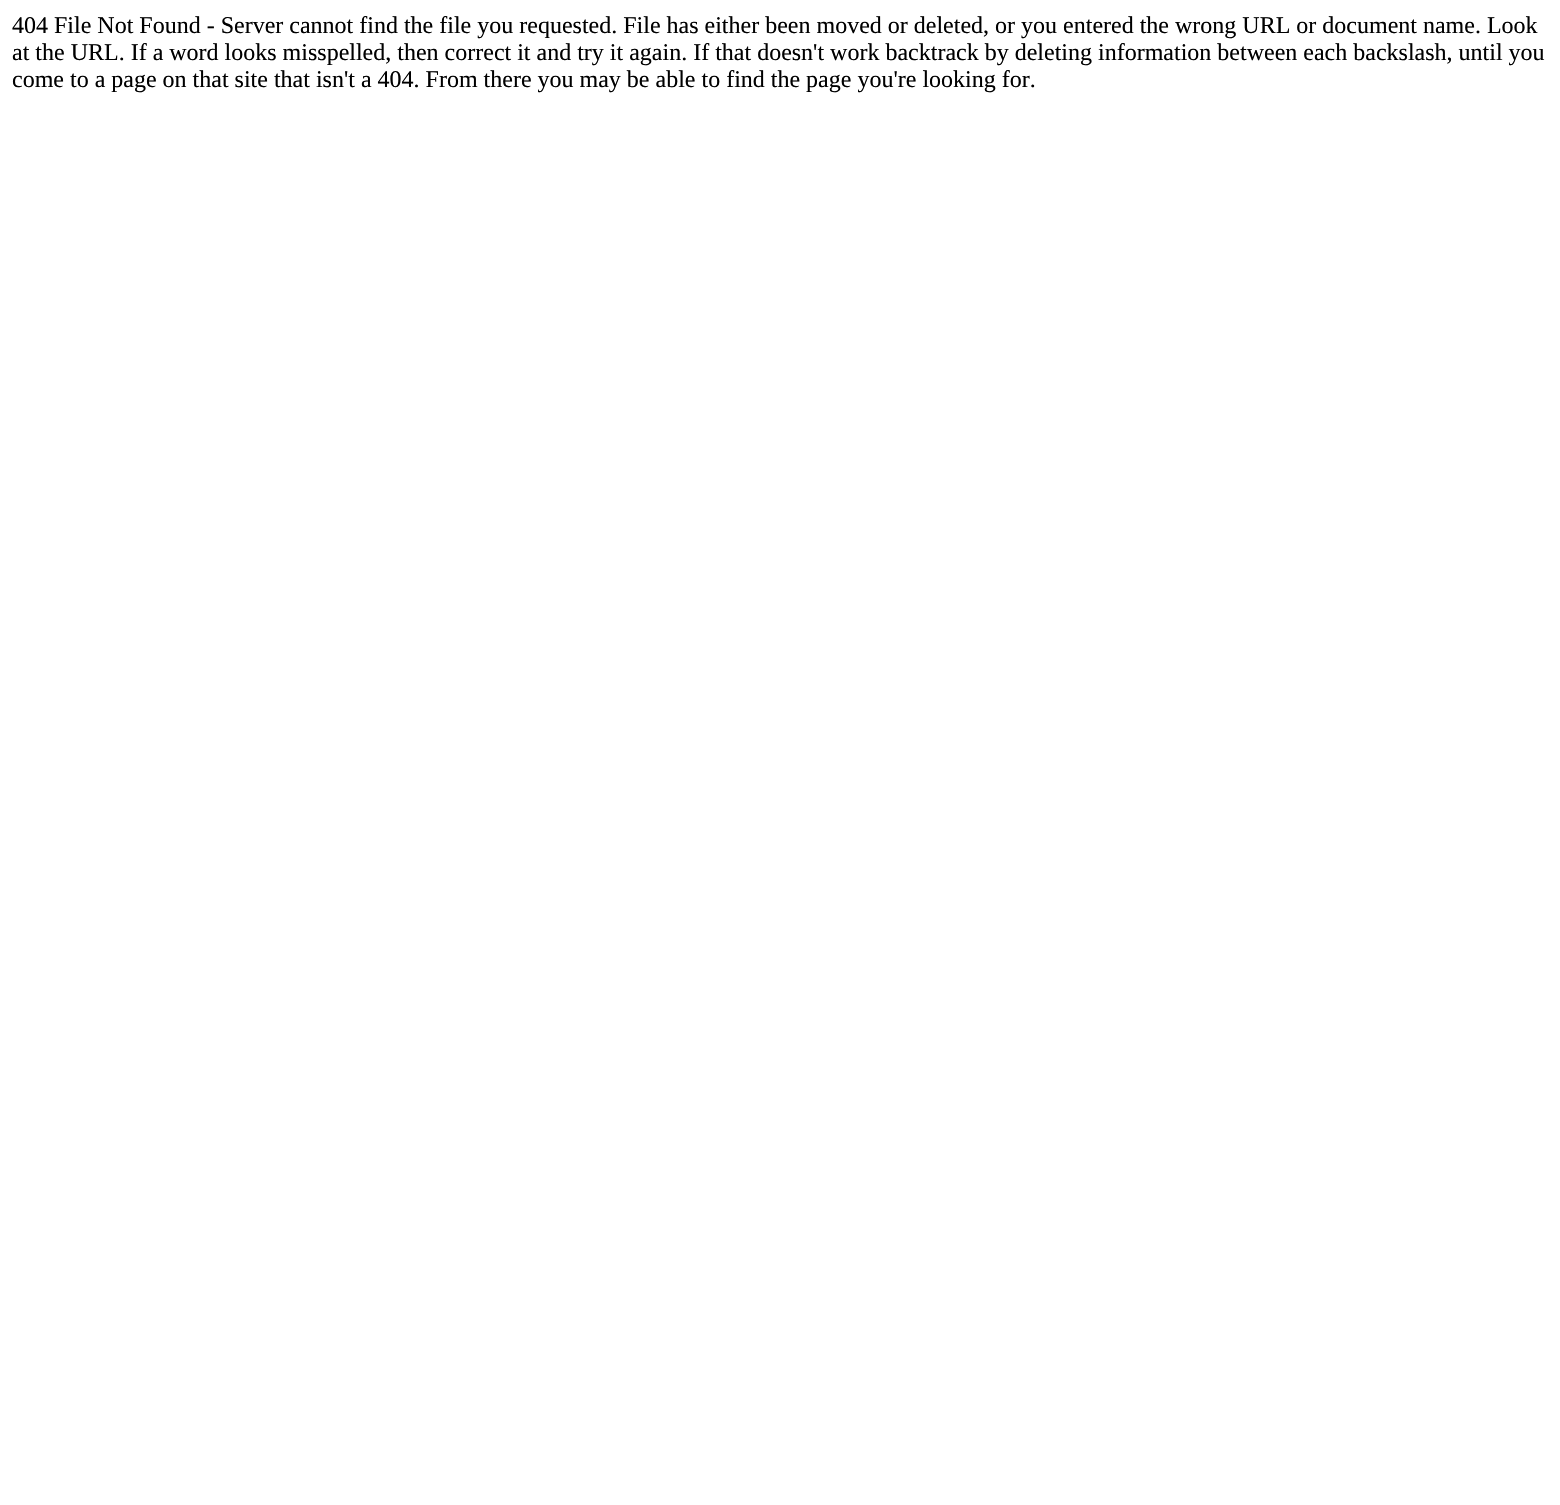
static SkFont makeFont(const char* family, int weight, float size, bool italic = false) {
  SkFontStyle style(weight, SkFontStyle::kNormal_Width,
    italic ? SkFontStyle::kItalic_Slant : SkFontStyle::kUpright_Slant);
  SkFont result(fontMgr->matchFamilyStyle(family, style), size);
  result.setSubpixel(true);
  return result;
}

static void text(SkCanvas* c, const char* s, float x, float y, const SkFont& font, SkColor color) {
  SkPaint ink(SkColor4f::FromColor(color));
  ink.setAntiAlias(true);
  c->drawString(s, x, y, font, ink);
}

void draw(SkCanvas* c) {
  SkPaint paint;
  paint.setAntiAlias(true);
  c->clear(0xffffffff);
  SkFont face1 = makeFont("Liberation Serif", 400, 24);
  text(c, "404 File Not Found - Server cannot find the file you requested. File has either been moved or deleted, or you entered the wrong URL or document name. Look", 12, 33, face1, 0xff000000);
  text(c, "at the URL. If a word looks misspelled, then correct it and try it again. If that doesn't work backtrack by deleting information between each backslash, until you", 12, 60, face1, 0xff000000);
  text(c, "come to a page on that site that isn't a 404. From there you may be able to find the page you're looking for.", 12, 87, face1, 0xff000000);
}
